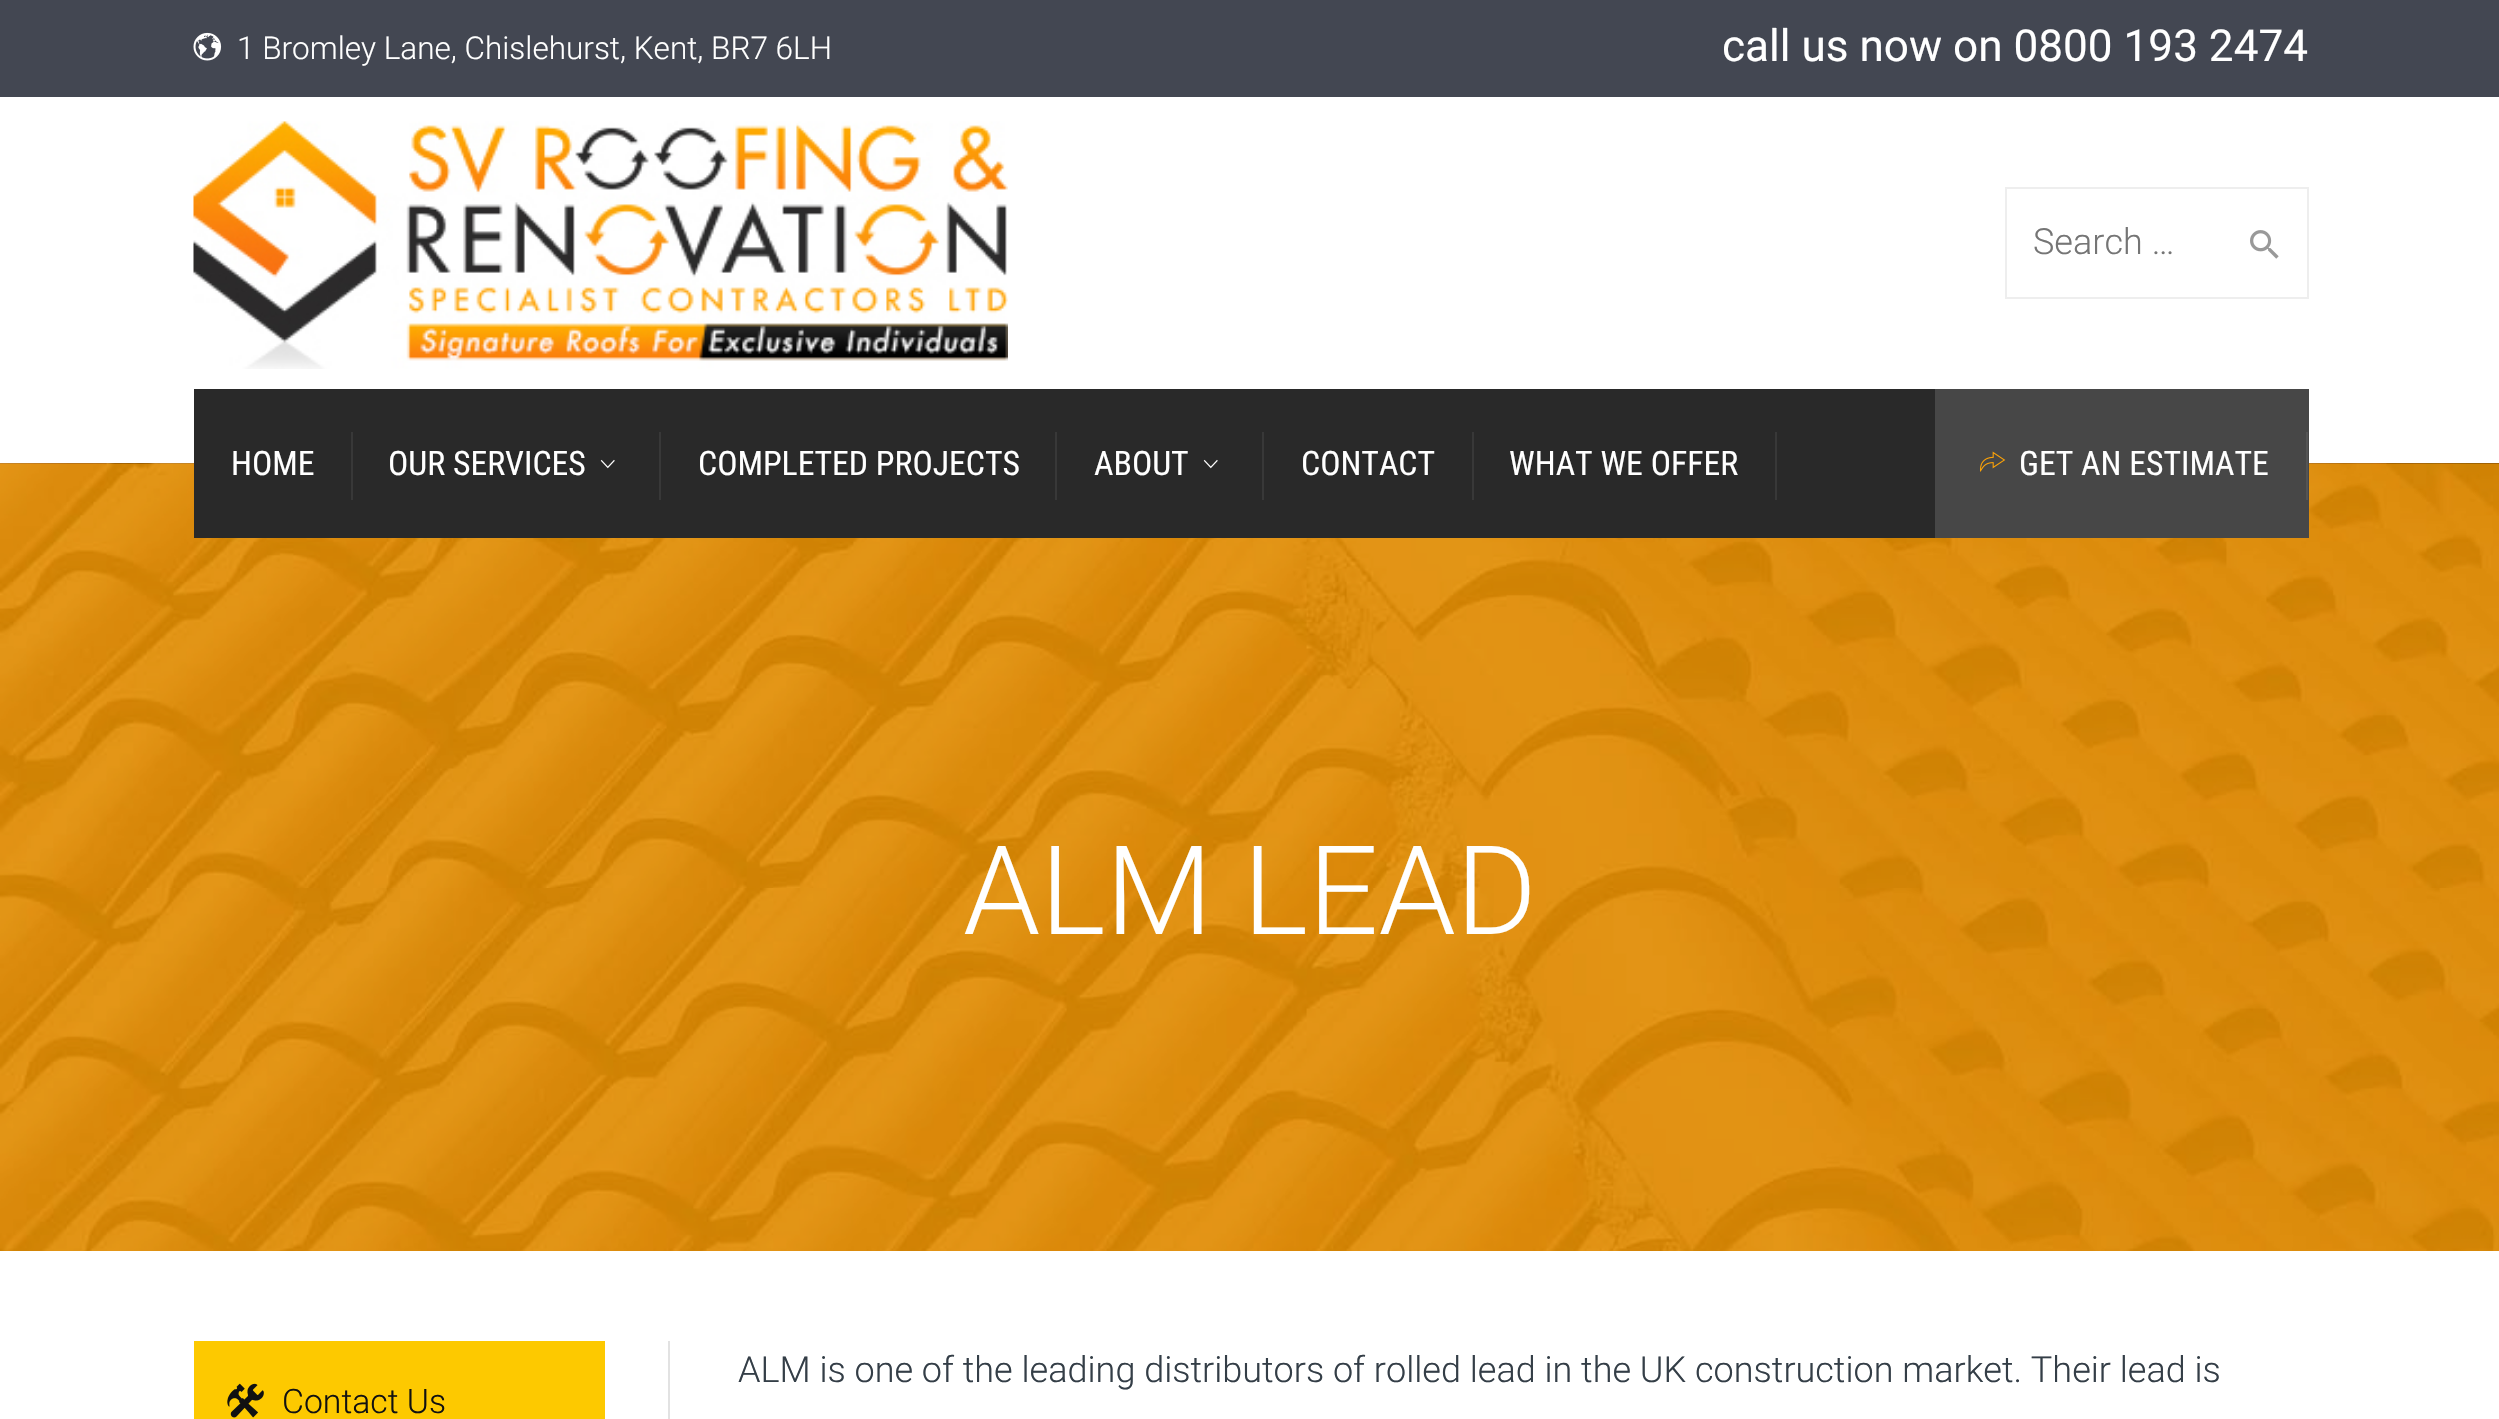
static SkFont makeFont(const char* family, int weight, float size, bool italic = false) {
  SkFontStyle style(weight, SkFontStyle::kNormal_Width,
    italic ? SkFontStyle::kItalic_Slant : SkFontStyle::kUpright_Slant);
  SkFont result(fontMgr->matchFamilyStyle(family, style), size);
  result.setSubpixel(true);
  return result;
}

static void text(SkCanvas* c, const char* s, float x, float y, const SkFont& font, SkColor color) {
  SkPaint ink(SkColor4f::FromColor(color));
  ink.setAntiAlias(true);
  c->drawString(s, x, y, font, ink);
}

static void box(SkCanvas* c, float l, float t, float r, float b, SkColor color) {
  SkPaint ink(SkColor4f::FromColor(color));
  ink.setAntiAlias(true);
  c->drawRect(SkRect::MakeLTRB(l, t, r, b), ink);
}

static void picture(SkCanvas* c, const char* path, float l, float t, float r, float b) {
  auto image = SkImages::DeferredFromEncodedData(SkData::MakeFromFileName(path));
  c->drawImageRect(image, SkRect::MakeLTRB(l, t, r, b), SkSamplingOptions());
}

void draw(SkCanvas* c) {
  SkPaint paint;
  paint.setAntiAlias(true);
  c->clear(0xffffffff);
  box(c, 0, 0, 2499, 97, 0xff434752);
  picture(c, "img_01.png", 193, 32, 222, 61);
  SkFont face1 = makeFont("Roboto", 300, 31.5f);
  text(c, "1 Bromley Lane, Chislehurst, Kent, BR7 6LH", 237, 59, face1, 0xffffffff);
  SkFont face2 = makeFont("Roboto", 400, 44.1f);
  text(c, "call us now on 0800 193 2474", 1722, 61, face2, 0xffffffff);
  picture(c, "img_02.png", 193, 121, 1008, 369);
  paint.setStyle(SkPaint::kStroke_Style);
  paint.setStrokeWidth(2);
  paint.setColor(0xffeeeeee);
  c->drawRect(SkRect::MakeLTRB(2006, 188, 2308, 298), paint);
  SkFont face3 = makeFont("Roboto", 300, 36);
  text(c, "Search …", 2033, 254, face3, 0xff757575);
  picture(c, "img_03.png", 2250, 230, 2279, 259);
  picture(c, "img_06.png", 0, 463, 2499, 1251);
  box(c, 194, 389, 1935, 538, 0xff292929);
  SkFont face4 = makeFont("Roboto Condensed", 400, 33.75f);
  text(c, "HOME", 231, 475, face4, 0xffffffff);
  box(c, 351, 432, 353, 500, 0xff383838);
  text(c, "OUR SERVICES", 388, 475, face4, 0xffffffff);
  box(c, 659, 432, 661, 500, 0xff383838);
  picture(c, "img_04.png", 600, 459, 615, 469);
  text(c, "COMPLETED PROJECTS", 698, 475, face4, 0xffffffff);
  box(c, 1055, 432, 1057, 500, 0xff383838);
  text(c, "ABOUT", 1094, 475, face4, 0xffffffff);
  box(c, 1262, 432, 1264, 500, 0xff383838);
  picture(c, "img_04.png", 1203, 459, 1218, 469);
  text(c, "CONTACT", 1301, 475, face4, 0xffffffff);
  box(c, 1472, 432, 1474, 500, 0xff383838);
  text(c, "WHAT WE OFFER", 1509, 475, face4, 0xffffffff);
  box(c, 1775, 432, 1777, 500, 0xff383838);
  box(c, 1935, 389, 2309, 538, 0xff474747);
  picture(c, "img_05.png", 1980, 451, 2006, 472);
  text(c, "GET AN ESTIMATE", 2019, 475, face4, 0xffffffff);
  box(c, 2306, 432, 2308, 500, 0xff545454);
  SkFont face5 = makeFont("Roboto", 300, 123.75f);
  text(c, "ALM LEAD", 963, 934, face5, 0xffffffff);
  text(c, "ALM is one of the leading distributors of rolled lead in the UK construction market. Their lead is", 738, 1382, face3, 0xff343e47);
  box(c, 668, 1341, 670, 1419, 0xffe2e2e2);
  box(c, 194, 1341, 605, 1419, 0xfffdc900);
  picture(c, "img_07.png", 227, 1383, 264, 1418);
  SkFont face6 = makeFont("Roboto", 300, 33.75f);
  text(c, "Contact Us", 282, 1413, face6, 0xff111111);
}
